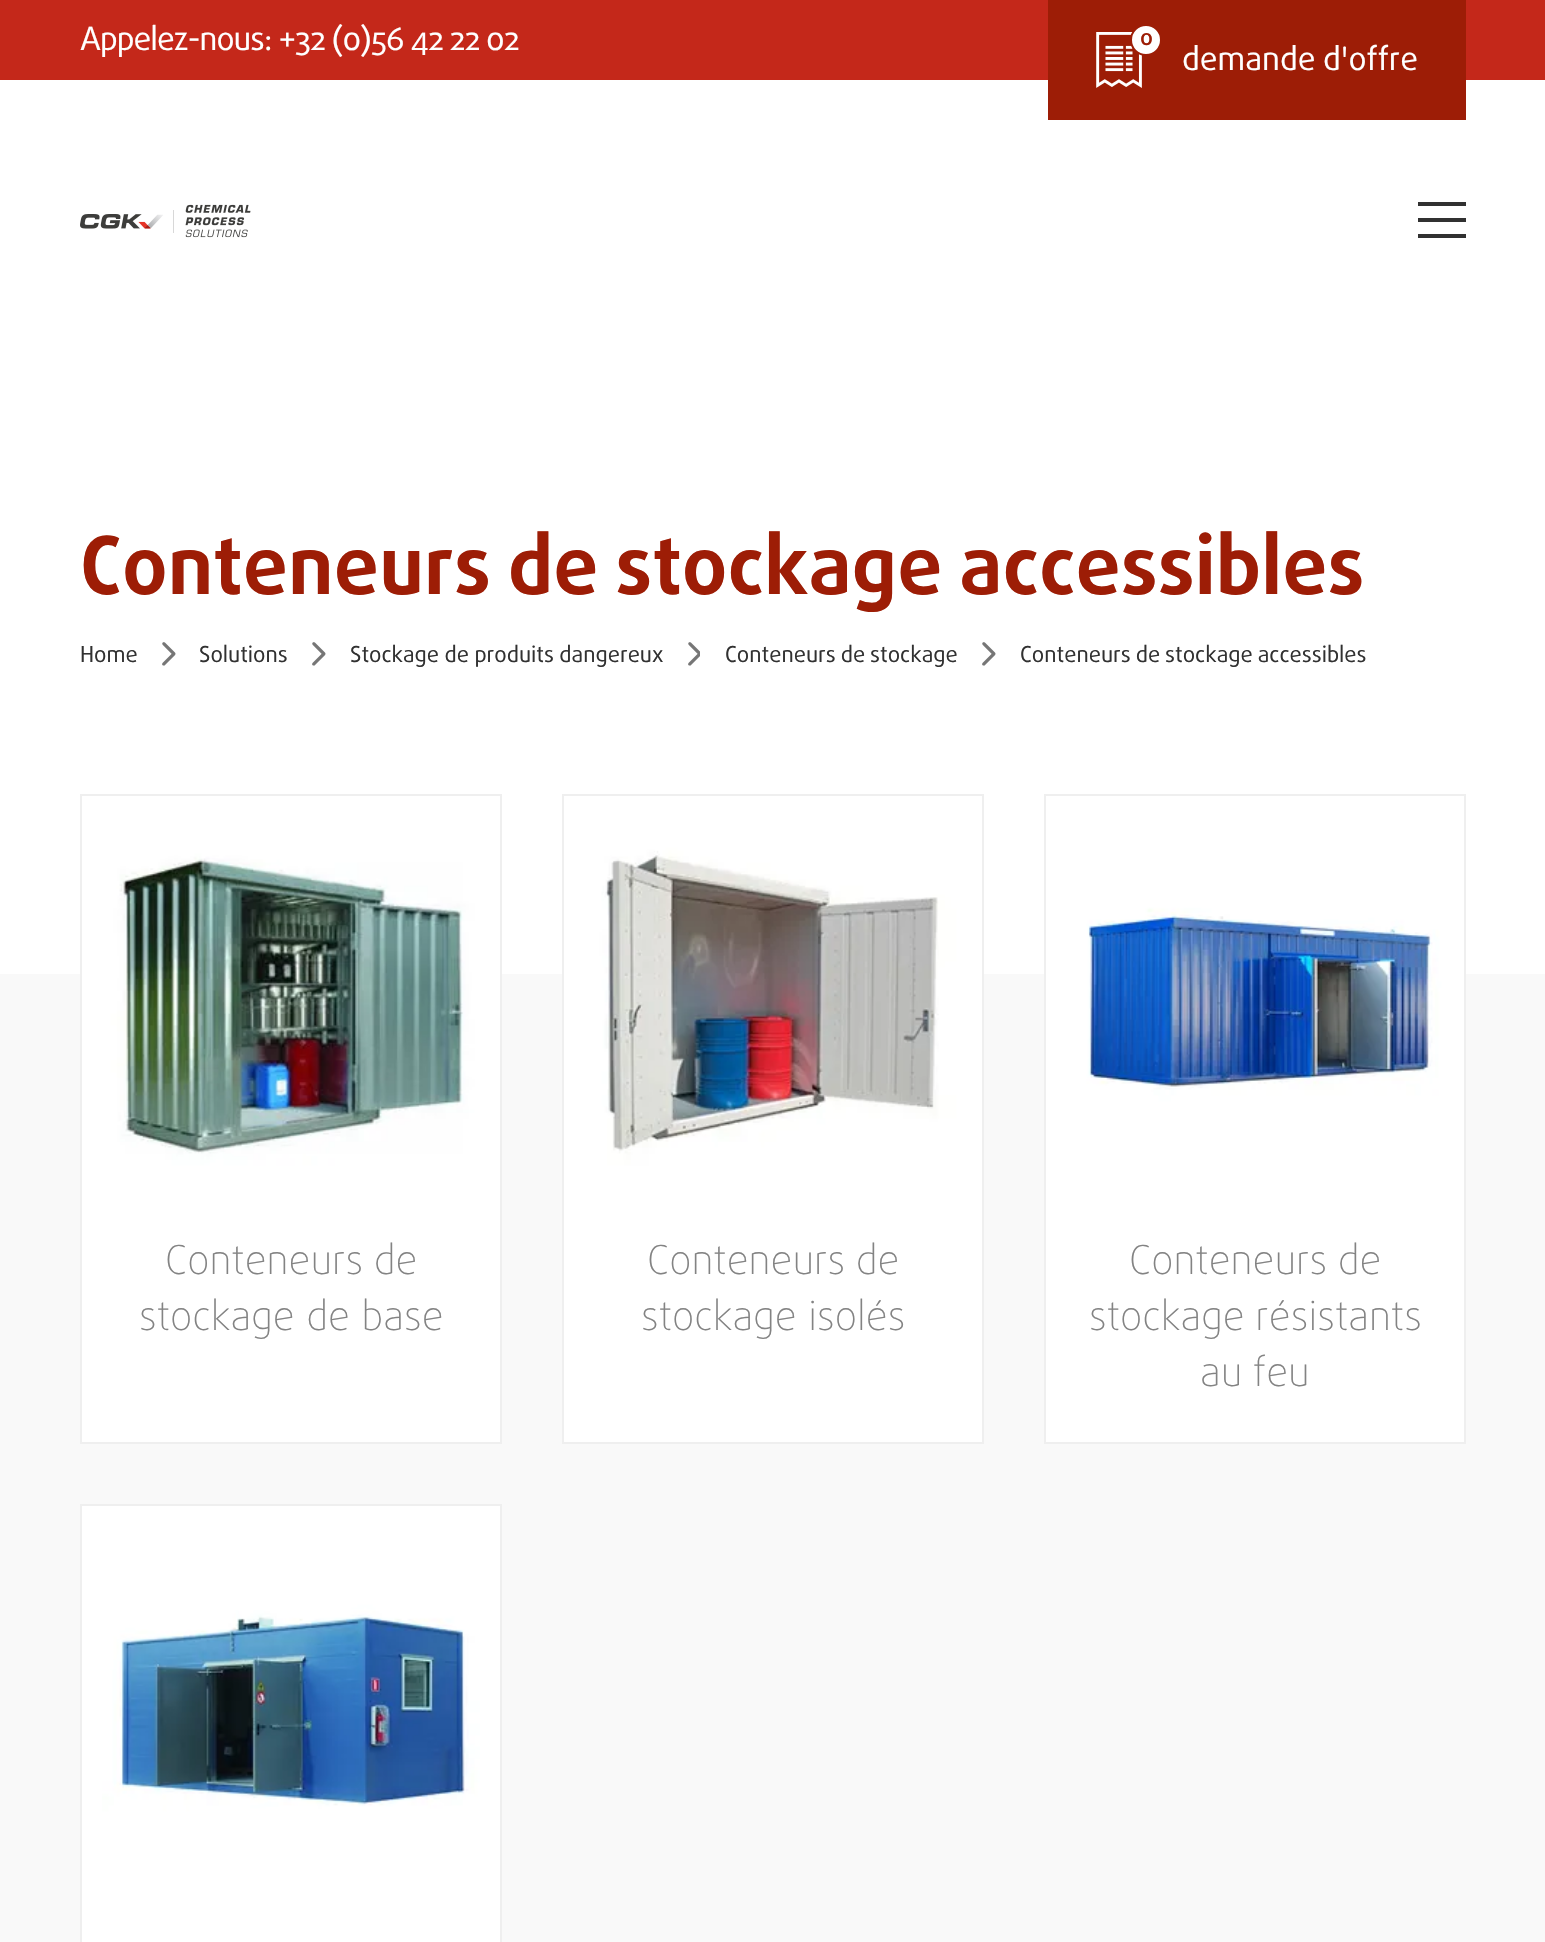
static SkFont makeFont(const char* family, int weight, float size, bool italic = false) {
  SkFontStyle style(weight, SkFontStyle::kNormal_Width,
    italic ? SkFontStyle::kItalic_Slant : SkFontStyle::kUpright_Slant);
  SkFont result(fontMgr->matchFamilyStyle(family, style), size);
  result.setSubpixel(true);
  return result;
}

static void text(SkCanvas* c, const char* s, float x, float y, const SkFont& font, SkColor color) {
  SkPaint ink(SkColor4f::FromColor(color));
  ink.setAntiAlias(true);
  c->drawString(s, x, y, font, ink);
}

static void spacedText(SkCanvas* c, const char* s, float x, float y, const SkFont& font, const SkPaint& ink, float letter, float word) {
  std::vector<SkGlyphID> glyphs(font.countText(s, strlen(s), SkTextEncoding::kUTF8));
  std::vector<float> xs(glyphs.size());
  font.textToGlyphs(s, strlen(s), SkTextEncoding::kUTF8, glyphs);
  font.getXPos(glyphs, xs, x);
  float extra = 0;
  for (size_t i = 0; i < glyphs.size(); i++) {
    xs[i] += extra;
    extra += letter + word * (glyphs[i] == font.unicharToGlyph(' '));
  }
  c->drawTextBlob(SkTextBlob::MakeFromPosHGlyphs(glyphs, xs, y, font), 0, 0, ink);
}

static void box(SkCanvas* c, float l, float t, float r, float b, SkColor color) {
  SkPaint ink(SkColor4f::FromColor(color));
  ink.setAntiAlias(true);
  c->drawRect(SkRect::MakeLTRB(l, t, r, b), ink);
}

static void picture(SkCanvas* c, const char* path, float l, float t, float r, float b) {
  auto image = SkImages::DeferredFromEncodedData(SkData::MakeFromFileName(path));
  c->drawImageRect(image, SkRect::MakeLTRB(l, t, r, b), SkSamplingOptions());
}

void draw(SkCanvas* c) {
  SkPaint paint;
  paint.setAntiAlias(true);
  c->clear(0xffffffff);
  box(c, 0, 0, 1545, 80, 0xffc4281a);
  SkFont face1 = makeFont("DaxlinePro", 400, 32);
  paint.setColor(0xffffffff);
  spacedText(c, "Appelez-nous: +32 (0)56 42 22 02", 80, 50, face1, paint, -1, -1);
  box(c, 1048, 0, 1466, 120, 0xff9d1d06);
  picture(c, "img_01.png", 1096, 32, 1142, 88);
  c->drawCircle(1146, 40, 15, paint);
  paint.setStyle(SkPaint::kStroke_Style);
  paint.setStrokeWidth(2);
  paint.setColor(0xff9d1d06);
  c->drawCircle(1146, 40, 15, paint);
  SkFont face2 = makeFont("DaxlinePro", 500, 22);
  text(c, "0", 1140, 45, face2, 0xff9d1d06);
  paint.setStyle(SkPaint::kFill_Style);
  paint.setColor(0xffffffff);
  spacedText(c, "demande d'offre", 1182, 70, face1, paint, 0, -1);
  picture(c, "img_02.png", 80, 204, 251, 238);
  box(c, 1418, 202, 1466, 206, 0xff313131);
  box(c, 1418, 218, 1466, 222, 0xff313131);
  box(c, 1418, 234, 1466, 238, 0xff313131);
  SkFont face3 = makeFont("DaxlinePro", 700, 80);
  paint.setColor(0xff9d1d06);
  spacedText(c, "Conteneurs de stockage accessibles", 80, 594, face3, paint, 0, -3);
  SkFont face4 = makeFont("DaxlinePro", 400, 22);
  text(c, "Home", 80, 662, face4, 0xff313131);
  picture(c, "img_03.png", 162, 642, 176, 666);
  text(c, "Solutions", 199, 662, face4, 0xff313131);
  picture(c, "img_03.png", 312, 642, 326, 666);
  paint.setColor(0xff313131);
  spacedText(c, "Stockage de produits dangereux", 350, 662, face4, paint, 0, -0.5f);
  picture(c, "img_04.png", 688, 642, 700, 666);
  spacedText(c, "Conteneurs de stockage", 725, 662, face4, paint, 0, -1);
  picture(c, "img_05.png", 982, 642, 996, 666);
  spacedText(c, "Conteneurs de stockage accessibles", 1020, 662, face4, paint, 0, -1);
  box(c, 0, 974, 1545, 1942, 0xfff9f9f9);
  box(c, 82, 1214, 500, 1442, 0xffffffff);
  paint.setStyle(SkPaint::kStroke_Style);
  paint.setColor(0xffefefef);
  c->drawRect(SkRect::MakeLTRB(81, 795, 501, 1443), paint);
  paint.setStrokeWidth(20);
  paint.setColor(0xffffffff);
  c->drawRect(SkRect::MakeLTRB(92, 806, 490, 1204), paint);
  picture(c, "img_06.png", 102, 816, 480, 1194);
  SkFont face5 = makeFont("DaxlinePro", 100, 40);
  paint.setStyle(SkPaint::kFill_Style);
  paint.setColor(0xff838383);
  spacedText(c, "Conteneurs de", 165, 1274, face5, paint, 0, -1);
  text(c, "stockage de base", 139, 1330, face5, 0xff838383);
  box(c, 564, 1214, 982, 1442, 0xffffffff);
  paint.setStyle(SkPaint::kStroke_Style);
  paint.setStrokeWidth(2);
  paint.setColor(0xffefefef);
  c->drawRect(SkRect::MakeLTRB(563, 795, 983, 1443), paint);
  paint.setStrokeWidth(20);
  paint.setColor(0xffffffff);
  c->drawRect(SkRect::MakeLTRB(574, 806, 972, 1204), paint);
  picture(c, "img_07.png", 584, 816, 962, 1194);
  paint.setStyle(SkPaint::kFill_Style);
  paint.setColor(0xff838383);
  spacedText(c, "Conteneurs de", 647, 1274, face5, paint, 0, -1);
  text(c, "stockage isolés", 641, 1330, face5, 0xff838383);
  box(c, 1046, 1214, 1464, 1442, 0xffffffff);
  paint.setStyle(SkPaint::kStroke_Style);
  paint.setStrokeWidth(2);
  paint.setColor(0xffefefef);
  c->drawRect(SkRect::MakeLTRB(1045, 795, 1465, 1443), paint);
  paint.setStrokeWidth(20);
  paint.setColor(0xffffffff);
  c->drawRect(SkRect::MakeLTRB(1056, 806, 1454, 1204), paint);
  picture(c, "img_08.png", 1066, 816, 1444, 1194);
  paint.setStyle(SkPaint::kFill_Style);
  paint.setColor(0xff838383);
  spacedText(c, "Conteneurs de", 1129, 1274, face5, paint, 0, -1);
  spacedText(c, "stockage résistants", 1089, 1330, face5, paint, 0, -1);
  spacedText(c, "au feu", 1200, 1386, face5, paint, 0, -1);
  box(c, 82, 1924, 500, 1942, 0xffffffff);
  paint.setStyle(SkPaint::kStroke_Style);
  paint.setStrokeWidth(2);
  paint.setColor(0xffefefef);
  c->drawRect(SkRect::MakeLTRB(81, 1505, 501, 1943), paint);
  paint.setStrokeWidth(20);
  paint.setColor(0xffffffff);
  c->drawRect(SkRect::MakeLTRB(92, 1516, 490, 1914), paint);
  picture(c, "img_09.png", 102, 1526, 480, 1904);
}
